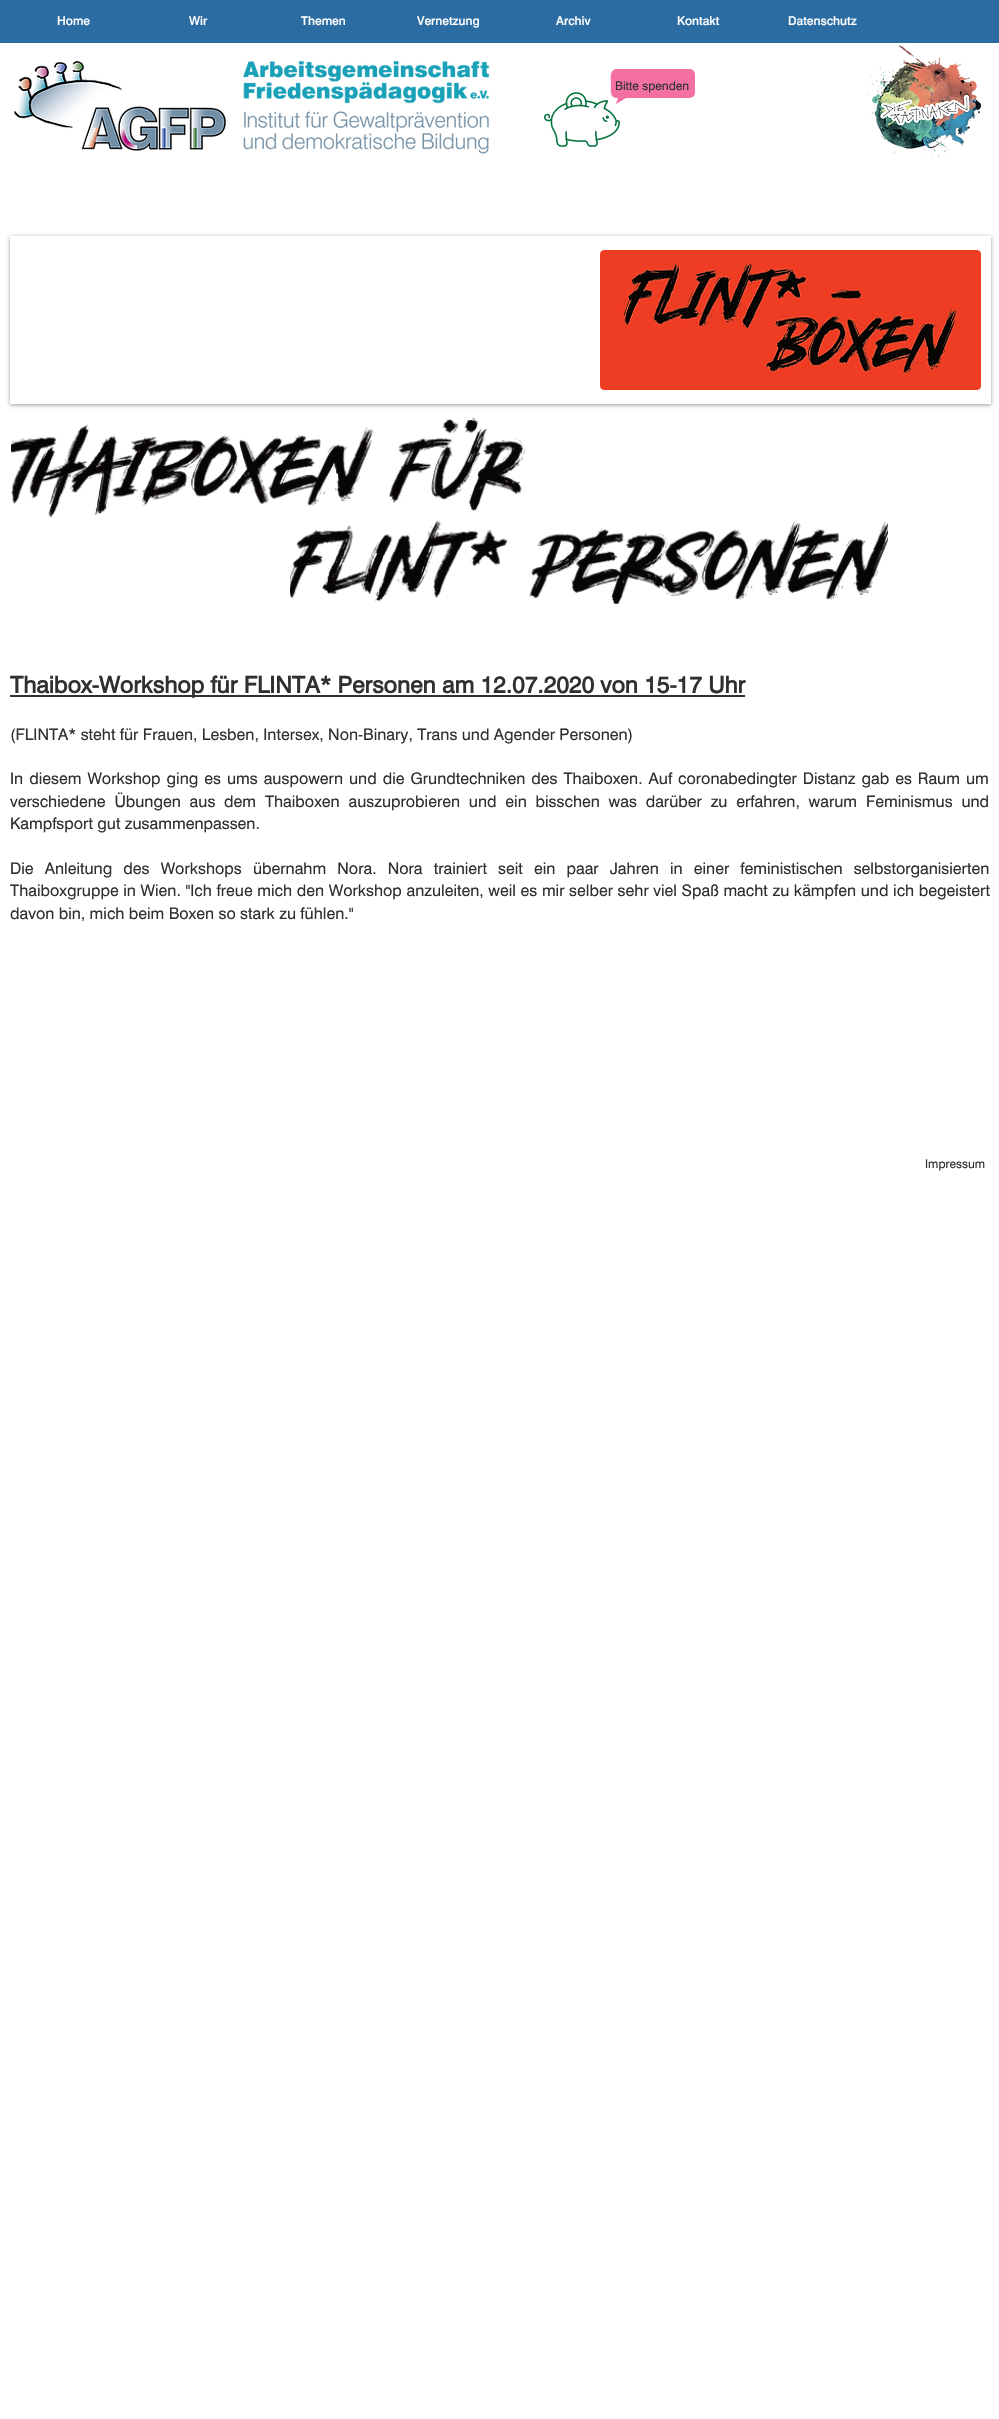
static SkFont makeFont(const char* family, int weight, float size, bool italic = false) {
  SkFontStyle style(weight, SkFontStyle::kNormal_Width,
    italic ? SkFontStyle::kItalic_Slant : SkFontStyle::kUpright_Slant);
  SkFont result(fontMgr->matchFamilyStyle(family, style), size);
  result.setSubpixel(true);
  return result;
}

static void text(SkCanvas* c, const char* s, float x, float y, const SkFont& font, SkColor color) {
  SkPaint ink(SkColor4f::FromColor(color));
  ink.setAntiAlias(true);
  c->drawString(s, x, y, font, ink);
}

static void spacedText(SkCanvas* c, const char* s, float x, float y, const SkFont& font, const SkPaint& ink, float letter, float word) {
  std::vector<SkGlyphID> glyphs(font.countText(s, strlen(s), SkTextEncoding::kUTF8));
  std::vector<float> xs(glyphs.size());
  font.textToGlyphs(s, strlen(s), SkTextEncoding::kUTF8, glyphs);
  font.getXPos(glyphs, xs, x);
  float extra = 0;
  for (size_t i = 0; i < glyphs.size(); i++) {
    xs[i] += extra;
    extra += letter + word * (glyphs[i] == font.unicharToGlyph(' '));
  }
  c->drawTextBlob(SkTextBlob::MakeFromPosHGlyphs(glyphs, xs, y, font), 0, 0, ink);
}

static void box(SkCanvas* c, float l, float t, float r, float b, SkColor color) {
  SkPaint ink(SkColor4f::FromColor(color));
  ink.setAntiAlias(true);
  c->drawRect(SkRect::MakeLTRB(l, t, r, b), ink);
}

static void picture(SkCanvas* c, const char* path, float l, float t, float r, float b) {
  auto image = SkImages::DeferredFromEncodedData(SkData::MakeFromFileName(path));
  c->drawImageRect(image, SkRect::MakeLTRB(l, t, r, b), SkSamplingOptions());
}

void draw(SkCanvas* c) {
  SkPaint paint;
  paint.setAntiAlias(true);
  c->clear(0xffffffff);
  box(c, 0, 0, 999, 43, 0xff2b6ca3);
  SkFont face1 = makeFont("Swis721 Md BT", 500, 12);
  text(c, "Home", 57, 25, face1, 0xffffffff);
  text(c, "Wir", 189, 25, face1, 0xffffffff);
  text(c, "Themen", 301, 25, face1, 0xffffffff);
  text(c, "Vernetzung", 417, 25, face1, 0xffffffff);
  text(c, "Archiv", 556, 25, face1, 0xffffffff);
  text(c, "Kontakt", 677, 25, face1, 0xffffffff);
  text(c, "Datenschutz", 788, 25, face1, 0xffffffff);
  picture(c, "img_01.png", 14, 60, 490, 154);
  picture(c, "img_02.png", 544, 92, 620, 147);
  paint.setColor(0xfff470a2);
  c->drawPath(SkPathBuilder().moveTo(617, 69).lineTo(689, 69).cubicTo(692, 69, 695, 71, 695, 74).lineTo(695, 93).cubicTo(695, 96, 692, 98, 689, 98).lineTo(626, 98).lineTo(616, 104).lineTo(618, 98).cubicTo(609, 98, 611, 90, 611, 84).cubicTo(611, 79, 609, 69, 617, 69).close().detach(), paint);
  SkFont face2 = makeFont("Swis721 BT", 400, 12);
  text(c, "Bitte spenden", 615, 90, face2, 0xff303030);
  picture(c, "img_03.png", 868, 45, 982, 158);
  c->save();
  c->clipPath(SkPathBuilder(SkPathFillType::kEvenOdd).moveTo(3, 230).lineTo(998, 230).lineTo(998, 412).lineTo(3, 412).close().moveTo(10, 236).lineTo(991, 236).lineTo(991, 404).lineTo(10, 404).close().detach(), true);
  paint.setColor(0x66000000);
  paint.setMaskFilter(SkMaskFilter::MakeBlur(kNormal_SkBlurStyle, 2));
  c->drawRect(SkRect::MakeLTRB(10, 237, 991, 405), paint);
  paint.setMaskFilter(nullptr);
  c->restore();
  picture(c, "img_04.png", 600, 250, 981, 390);
  picture(c, "img_05.png", 11, 418, 525, 518);
  picture(c, "img_06.png", 290, 520, 888, 604);
  box(c, 10, 695, 745, 697, 0xff303030);
  SkFont face3 = makeFont("Swis721 BT", 700, 23);
  text(c, "Thaibox-Workshop für FLINTA* Personen am 12.07.2020 von 15-17 Uhr", 10, 693, face3, 0xff303030);
  SkFont face4 = makeFont("Swis721 BT", 400, 16);
  text(c, "(FLINTA* steht für Frauen, Lesben, Intersex, Non-Binary, Trans und Agender Personen)", 10, 740, face4, 0xff303030);
  paint.setColor(0xff303030);
  spacedText(c, "In diesem Workshop ging es ums auspowern und die Grundtechniken des Thaiboxen. Auf coronabedingter Distanz gab es Raum um", 10, 784, face4, paint, 0, 1.6f);
  spacedText(c, "verschiedene Übungen aus dem Thaiboxen auszuprobieren und ein bisschen was darüber zu erfahren, warum Feminismus und", 10, 807, face4, paint, 0, 4.4f);
  text(c, "Kampfsport gut zusammenpassen.", 10, 829, face4, 0xff303030);
  spacedText(c, "Die Anleitung des Workshops übernahm Nora. Nora trainiert seit ein paar Jahren in einer feministischen selbstorganisierten", 10, 874, face4, paint, 0, 6.75f);
  spacedText(c, "Thaiboxgruppe in Wien. \"Ich freue mich den Workshop anzuleiten, weil es mir selber sehr viel Spaß macht zu kämpfen und ich begeistert", 10, 896, face4, paint, 0, 0.25f);
  text(c, "davon bin, mich beim Boxen so stark zu fühlen.\"", 10, 919, face4, 0xff303030);
  text(c, "Impressum", 925, 1168, face2, 0xff303030);
}
